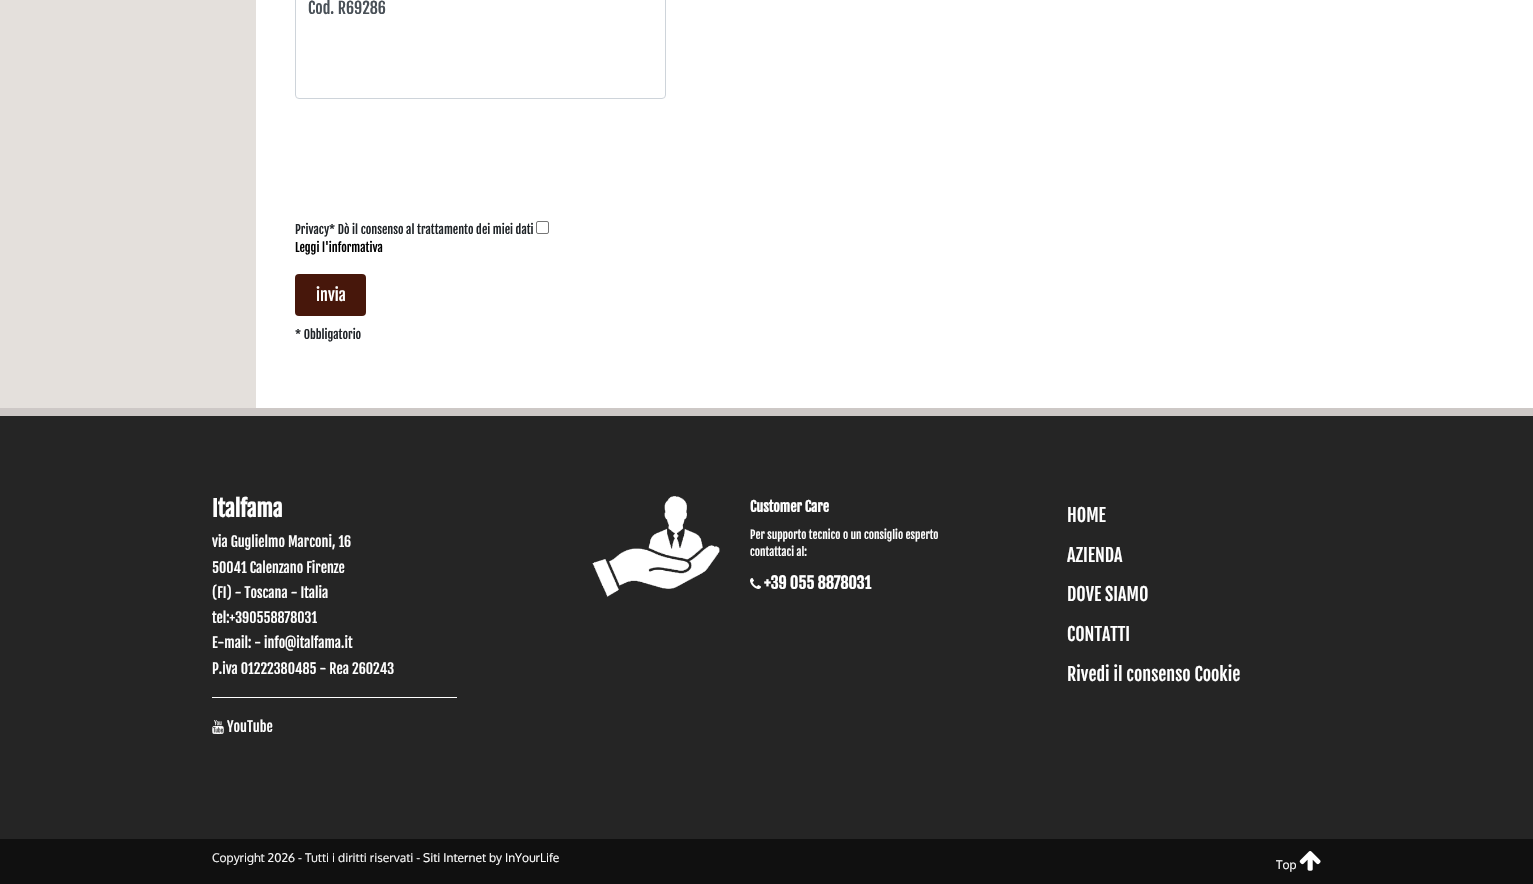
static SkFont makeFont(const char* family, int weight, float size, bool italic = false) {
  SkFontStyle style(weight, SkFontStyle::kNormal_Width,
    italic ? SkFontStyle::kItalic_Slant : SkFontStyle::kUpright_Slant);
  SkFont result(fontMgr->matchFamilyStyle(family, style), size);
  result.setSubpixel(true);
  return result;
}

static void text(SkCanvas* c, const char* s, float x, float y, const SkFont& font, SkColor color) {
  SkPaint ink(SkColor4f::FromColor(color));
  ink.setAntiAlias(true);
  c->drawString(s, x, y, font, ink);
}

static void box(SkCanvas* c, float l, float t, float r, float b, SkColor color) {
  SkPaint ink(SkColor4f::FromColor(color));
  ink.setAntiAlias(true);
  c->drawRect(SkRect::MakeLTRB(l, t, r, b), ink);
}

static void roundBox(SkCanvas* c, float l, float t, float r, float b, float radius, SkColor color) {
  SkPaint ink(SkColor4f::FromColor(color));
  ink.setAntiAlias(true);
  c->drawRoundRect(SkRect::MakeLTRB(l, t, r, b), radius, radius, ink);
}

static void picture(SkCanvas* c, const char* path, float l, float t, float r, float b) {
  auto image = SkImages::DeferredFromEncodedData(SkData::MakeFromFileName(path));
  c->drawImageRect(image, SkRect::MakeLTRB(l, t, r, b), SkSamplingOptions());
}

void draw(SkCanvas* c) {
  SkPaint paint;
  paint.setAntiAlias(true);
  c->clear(0xff252525);
  box(c, 0, 0, 256, 408, 0xffe4e0dc);
  box(c, 256, 0, 1533, 408, 0xffffffff);
  paint.setStyle(SkPaint::kStroke_Style);
  paint.setStrokeWidth(1);
  paint.setColor(0xffced4da);
  c->drawRoundRect(SkRect::MakeLTRB(295.5f, -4.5f, 665.5f, 98.5f), 3.5f, 3.5f, paint);
  SkFont face1 = makeFont("Fjalla One", 400, 16);
  text(c, "Cod. R69286", 308, 14, face1, 0xff495057);
  SkFont face2 = makeFont("Fjalla One", 400, 12);
  text(c, "Privacy* Dò il consenso al trattamento dei miei dati", 295, 234, face2, 0xff212529);
  paint.setColor(0xff767676);
  c->drawRoundRect(SkRect::MakeLTRB(536.5f, 221.5f, 548.5f, 233.5f), 1.5f, 1.5f, paint);
  text(c, "Leggi l'informativa", 295, 252, face2, 0xff000000);
  roundBox(c, 295, 274, 366, 316, 4, 0xff47170b);
  text(c, "invia", 316, 301, face1, 0xffffffff);
  text(c, "* Obbligatorio", 295, 339, face2, 0xff212529);
  box(c, 0, 408, 1533, 416, 0xffcdc8c6);
  SkFont face3 = makeFont("Fjalla One", 700, 22);
  text(c, "Italfama", 212, 517, face3, 0xffffffff);
  SkFont face4 = makeFont("Fjalla One", 400, 14);
  text(c, "via Guglielmo Marconi, 16", 212, 547, face4, 0xffffffff);
  text(c, "50041 Calenzano Firenze", 212, 573, face4, 0xffffffff);
  text(c, "(FI) - Toscana - Italia", 212, 598, face4, 0xffffffff);
  text(c, "tel:+390558878031", 212, 623, face4, 0xffffffff);
  text(c, "E-mail: - info@italfama.it", 212, 648, face4, 0xffffffff);
  text(c, "P.iva 01222380485 - Rea 260243", 212, 674, face4, 0xffffffff);
  box(c, 212, 697, 457, 698, 0xffffffff);
  picture(c, "img_01.png", 212, 720, 224, 734);
  text(c, "YouTube", 227, 732, face4, 0xffffffff);
  picture(c, "img_02.png", 592, 496, 720, 597);
  SkFont face5 = makeFont("Fjalla One", 700, 14);
  text(c, "Customer Care", 750, 512, face5, 0xffffffff);
  SkFont face6 = makeFont("Fjalla One", 400, 11.25f);
  text(c, "Per supporto tecnico o un consiglio esperto", 750, 539, face6, 0xffffffff);
  text(c, "contattaci al:", 750, 556, face6, 0xffffffff);
  picture(c, "img_03.png", 750, 578, 761, 589);
  SkFont face7 = makeFont("Fjalla One", 700, 16);
  text(c, "+39 055 8878031", 764, 589, face7, 0xffffffff);
  SkFont face8 = makeFont("Fjalla One", 400, 18);
  text(c, "HOME", 1067, 522, face8, 0xffffffff);
  text(c, "AZIENDA", 1067, 562, face8, 0xffffffff);
  text(c, "DOVE SIAMO", 1067, 601, face8, 0xffffffff);
  text(c, "CONTATTI", 1067, 641, face8, 0xffffffff);
  text(c, "Rivedi il consenso Cookie", 1067, 681, face8, 0xffffffff);
  box(c, 0, 839, 1533, 884, 0xff101010);
  SkFont face9 = makeFont("Oxygen", 400, 12);
  text(c, "Copyright 2026 - Tutti i diritti riservati -", 212, 862, face9, 0xfff6f6f6);
  text(c, "Siti Internet", 423, 862, face9, 0xffffffff);
  text(c, "by", 489, 862, face9, 0xfff6f6f6);
  text(c, "InYourLife", 505, 862, face9, 0xffffffff);
  text(c, "Top", 1276, 869, face9, 0xffffffff);
  picture(c, "img_04.png", 1299, 851, 1321, 871);
}
